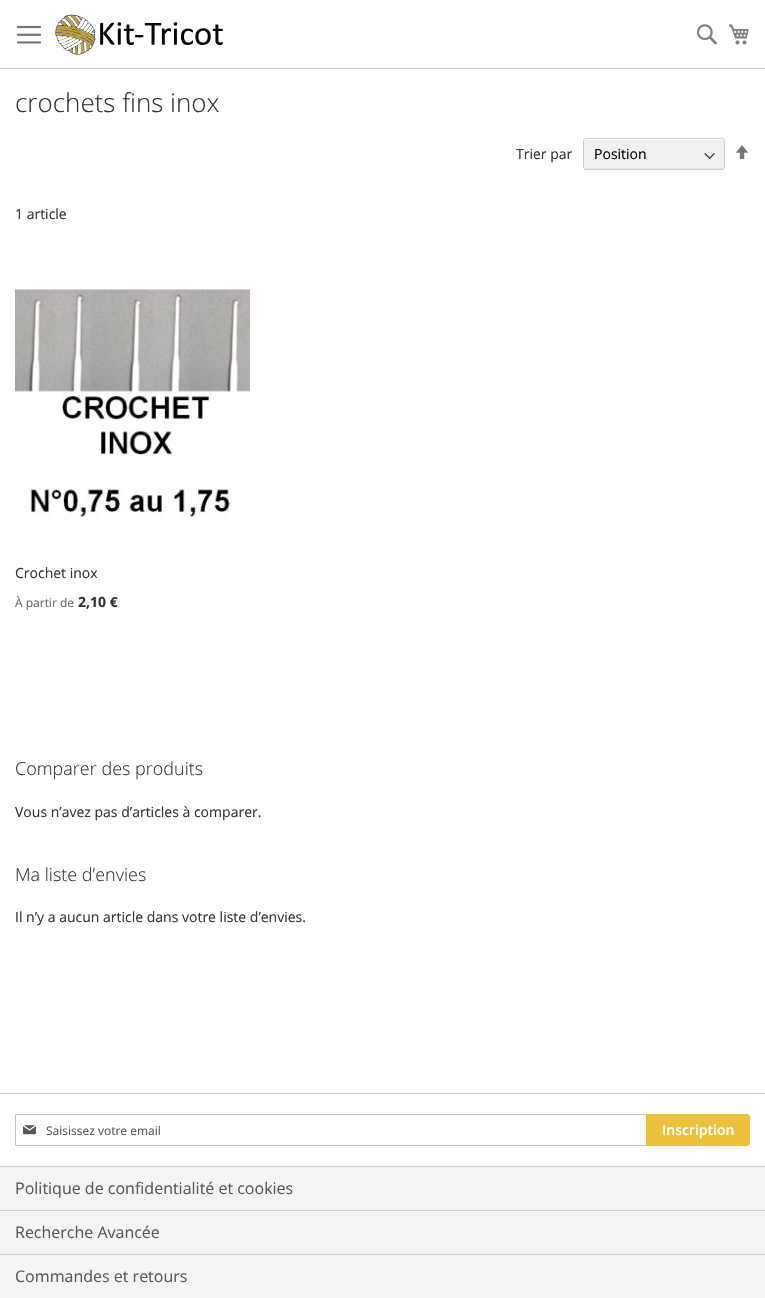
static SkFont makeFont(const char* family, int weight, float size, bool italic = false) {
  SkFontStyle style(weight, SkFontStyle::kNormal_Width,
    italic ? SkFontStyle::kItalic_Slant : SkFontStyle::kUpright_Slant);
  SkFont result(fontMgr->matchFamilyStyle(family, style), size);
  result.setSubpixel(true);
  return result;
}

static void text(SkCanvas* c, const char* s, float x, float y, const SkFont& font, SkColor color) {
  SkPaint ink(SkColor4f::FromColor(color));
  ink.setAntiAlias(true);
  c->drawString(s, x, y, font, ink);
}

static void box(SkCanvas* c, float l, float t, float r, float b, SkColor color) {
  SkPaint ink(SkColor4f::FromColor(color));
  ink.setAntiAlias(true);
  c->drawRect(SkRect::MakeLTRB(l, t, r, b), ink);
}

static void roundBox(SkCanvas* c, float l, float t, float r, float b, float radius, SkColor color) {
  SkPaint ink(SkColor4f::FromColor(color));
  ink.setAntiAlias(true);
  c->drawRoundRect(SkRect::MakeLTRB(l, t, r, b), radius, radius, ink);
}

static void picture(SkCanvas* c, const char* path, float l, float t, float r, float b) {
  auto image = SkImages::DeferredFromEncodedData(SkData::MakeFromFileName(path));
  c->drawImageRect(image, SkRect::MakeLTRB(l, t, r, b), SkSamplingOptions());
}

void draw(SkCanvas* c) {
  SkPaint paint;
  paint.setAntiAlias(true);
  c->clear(0xffffffff);
  box(c, 0, 68, 765, 69, 0xffcccccc);
  picture(c, "img_01.png", 16, 25, 42, 44);
  picture(c, "img_02.png", 55, 14, 223, 55);
  picture(c, "img_03.png", 696, 24, 717, 45);
  picture(c, "img_04.png", 729, 24, 749, 45);
  SkFont face1 = makeFont("Open Sans", 300, 26);
  text(c, "crochets fins inox", 15, 112, face1, 0xff333333);
  SkFont face2 = makeFont("Open Sans", 400, 14);
  text(c, "Trier par", 516, 159, face2, 0xff333333);
  roundBox(c, 584, 139, 724, 169, 2, 0xfff0f0f0);
  picture(c, "img_05.png", 704, 153, 715, 159);
  paint.setColor(0xffe5e5e5);
  c->drawPath(SkPathBuilder().moveTo(584, 166).cubicTo(584, 167, 584, 169, 586, 169).lineTo(722, 169).cubicTo(724, 169, 724, 167, 724, 166).cubicTo(724, 167, 723, 168, 722, 168).lineTo(586, 168).cubicTo(585, 168, 584, 167, 584, 166).close().detach(), paint);
  paint.setColor(0xffffffff);
  c->drawPath(SkPathBuilder().moveTo(586, 140).lineTo(722, 140).cubicTo(723, 140, 724, 141, 724, 142).cubicTo(724, 141, 724, 139, 722, 139).lineTo(586, 139).cubicTo(584, 139, 584, 141, 584, 142).cubicTo(584, 141, 585, 140, 586, 140).close().detach(), paint);
  paint.setStyle(SkPaint::kStroke_Style);
  paint.setStrokeWidth(1);
  paint.setColor(0xffcccccc);
  c->drawRoundRect(SkRect::MakeLTRB(583.5f, 138.5f, 724.5f, 169.5f), 2.5f, 2.5f, paint);
  text(c, "Position", 594, 159, face2, 0xff000000);
  picture(c, "img_06.png", 735, 145, 749, 159);
  text(c, "1 article", 15, 219, face2, 0xff333333);
  picture(c, "img_07.png", 15, 289, 250, 519);
  text(c, "Crochet inox", 15, 578, face2, 0xff333333);
  SkFont face3 = makeFont("Open Sans", 400, 12);
  text(c, "À partir de", 15, 607, face3, 0xff666666);
  SkFont face4 = makeFont("Open Sans", 700, 14);
  text(c, "2,10 €", 78, 607, face4, 0xff333333);
  SkFont face5 = makeFont("Open Sans", 300, 18);
  text(c, "Comparer des produits", 15, 775, face5, 0xff333333);
  text(c, "Vous n’avez pas d’articles à comparer.", 15, 817, face2, 0xff333333);
  text(c, "Ma liste d’envies", 15, 881, face5, 0xff333333);
  text(c, "Il n’y a aucun article dans votre liste d’envies.", 15, 922, face2, 0xff333333);
  box(c, 0, 1093, 765, 1094, 0xffcecece);
  paint.setColor(0xffc2c2c2);
  c->drawRoundRect(SkRect::MakeLTRB(15.5f, 1114.5f, 646.5f, 1145.5f), 0.5f, 0.5f, paint);
  picture(c, "img_08.png", 23, 1125, 36, 1135);
  text(c, "Saisissez votre email", 46, 1135, face3, 0xff575757);
  paint.setStyle(SkPaint::kFill_Style);
  paint.setColor(0xffecc039);
  c->drawPath(SkPathBuilder().moveTo(646.5f, 1114.5f).lineTo(747, 1114.5f).cubicTo(748.5f, 1114.5f, 749.5f, 1115.5f, 749.5f, 1117).lineTo(749.5f, 1143).cubicTo(749.5f, 1144.5f, 748.5f, 1145.5f, 747, 1145.5f).lineTo(646.5f, 1145.5f).close().detach(), paint);
  paint.setStyle(SkPaint::kStroke_Style);
  c->drawPath(SkPathBuilder().moveTo(646.5f, 1114.5f).lineTo(747, 1114.5f).cubicTo(748.5f, 1114.5f, 749.5f, 1115.5f, 749.5f, 1117).lineTo(749.5f, 1143).cubicTo(749.5f, 1144.5f, 748.5f, 1145.5f, 747, 1145.5f).lineTo(646.5f, 1145.5f).close().detach(), paint);
  SkFont face6 = makeFont("Open Sans", 600, 14);
  text(c, "Inscription", 662, 1135, face6, 0xffffffff);
  box(c, 0, 1167, 765, 1210, 0xfff4f4f4);
  box(c, 0, 1166, 765, 1167, 0xffcecece);
  SkFont face7 = makeFont("Open Sans", 400, 16);
  text(c, "Politique de confidentialité et cookies", 15, 1194, face7, 0xff575757);
  box(c, 0, 1211, 765, 1254, 0xfff4f4f4);
  box(c, 0, 1210, 765, 1211, 0xffcecece);
  text(c, "Recherche Avancée", 15, 1238, face7, 0xff575757);
  box(c, 0, 1255, 765, 1298, 0xfff4f4f4);
  box(c, 0, 1254, 765, 1255, 0xffcecece);
  text(c, "Commandes et retours", 15, 1282, face7, 0xff575757);
}
